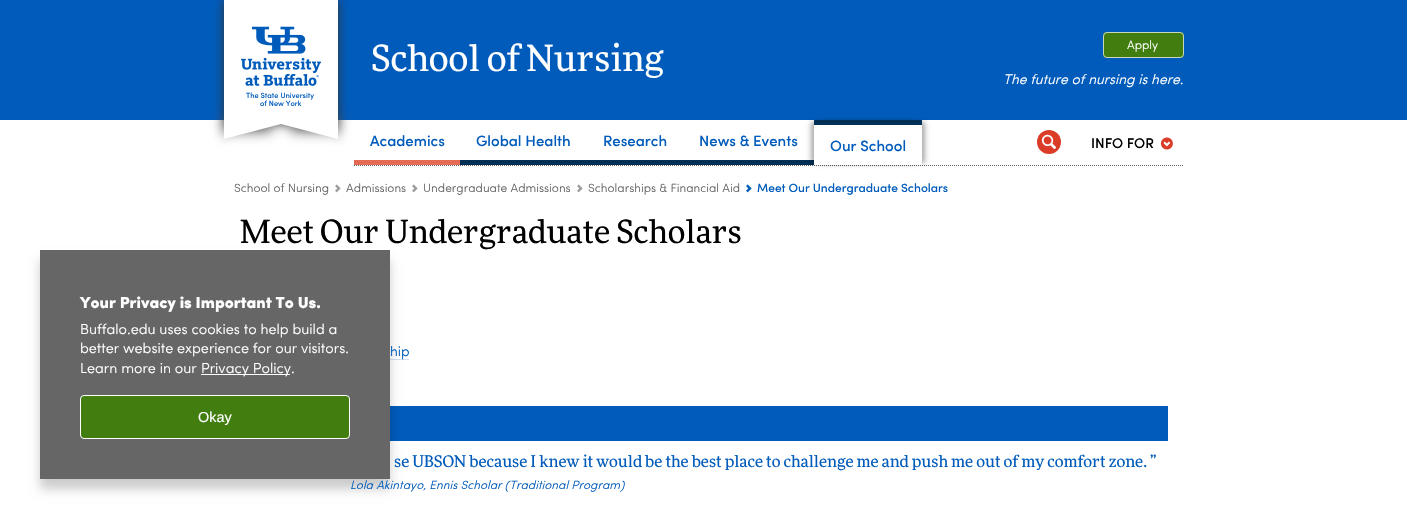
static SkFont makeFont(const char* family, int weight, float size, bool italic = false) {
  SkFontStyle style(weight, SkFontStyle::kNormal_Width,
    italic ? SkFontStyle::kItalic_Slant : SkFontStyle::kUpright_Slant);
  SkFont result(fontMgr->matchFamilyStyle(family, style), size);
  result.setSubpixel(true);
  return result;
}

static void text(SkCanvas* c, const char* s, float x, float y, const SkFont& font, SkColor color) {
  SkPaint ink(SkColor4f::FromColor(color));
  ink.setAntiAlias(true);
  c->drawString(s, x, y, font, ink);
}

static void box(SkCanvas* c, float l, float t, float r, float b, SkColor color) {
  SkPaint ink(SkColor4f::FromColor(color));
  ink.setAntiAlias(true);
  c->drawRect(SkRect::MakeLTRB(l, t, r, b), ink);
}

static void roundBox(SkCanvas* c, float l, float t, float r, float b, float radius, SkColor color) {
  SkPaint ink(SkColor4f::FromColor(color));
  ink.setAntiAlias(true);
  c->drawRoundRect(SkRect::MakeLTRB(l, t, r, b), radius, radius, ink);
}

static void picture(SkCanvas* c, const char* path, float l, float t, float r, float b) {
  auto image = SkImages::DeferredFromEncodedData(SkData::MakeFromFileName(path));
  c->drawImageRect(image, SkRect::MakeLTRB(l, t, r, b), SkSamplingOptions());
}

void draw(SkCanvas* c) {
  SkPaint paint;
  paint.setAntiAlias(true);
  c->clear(0xffffffff);
  box(c, 390, 359, 409, 360, 0xffd1e1f3);
  box(c, 390, 406, 1168, 441, 0xff005bbb);
  paint.setColor(0x33000000);
  paint.setMaskFilter(SkMaskFilter::MakeBlur(kNormal_SkBlurStyle, 5));
  c->drawRect(SkRect::MakeLTRB(40, 260, 390, 489), paint);
  paint.setMaskFilter(nullptr);
  box(c, 40, 250, 390, 479, 0xff666666);
  SkFont face1 = makeFont("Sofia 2", 400, 16);
  text(c, "Your Privacy is Important To Us.", 80, 308, face1, 0xffffffff);
  SkFont face2 = makeFont("Sofia", 400, 14.4f);
  text(c, "Buffalo.edu uses cookies to help build a", 80, 334, face2, 0xffffffff);
  text(c, "better website experience for our visitors.", 80, 353, face2, 0xffffffff);
  text(c, "Learn more in our", 80, 373, face2, 0xffffffff);
  box(c, 201, 374, 290, 375, 0xffffffff);
  text(c, "Privacy Policy.", 201, 373, face2, 0xffffffff);
  paint.setColor(0xff427d10);
  c->drawRoundRect(SkRect::MakeLTRB(80.5f, 395.5f, 349.5f, 438.5f), 3.5f, 3.5f, paint);
  paint.setStyle(SkPaint::kStroke_Style);
  paint.setStrokeWidth(1);
  paint.setColor(0xffffffff);
  c->drawRoundRect(SkRect::MakeLTRB(80.5f, 395.5f, 349.5f, 438.5f), 3.5f, 3.5f, paint);
  SkFont face3 = makeFont("Liberation Sans", 400, 14.4f);
  text(c, "Okay", 198, 422, face3, 0xffffffff);
  box(c, 0, 0, 1407, 120, 0xff005bbb);
  paint.setStyle(SkPaint::kFill_Style);
  paint.setColor(0xff333333);
  paint.setMaskFilter(SkMaskFilter::MakeBlur(kNormal_SkBlurStyle, 5));
  c->drawRect(SkRect::MakeLTRB(224, 0, 338, 124), paint);
  paint.setMaskFilter(nullptr);
  paint.setColor(0xff555555);
  paint.setMaskFilter(SkMaskFilter::MakeBlur(kNormal_SkBlurStyle, 6.5f));
  c->drawRoundRect(SkRect::MakeLTRB(224, 119, 271, 131), 2, 2, paint);
  paint.setMaskFilter(nullptr);
  paint.setMaskFilter(SkMaskFilter::MakeBlur(kNormal_SkBlurStyle, 6.5f));
  c->drawRoundRect(SkRect::MakeLTRB(291, 119, 338, 131), 2, 2, paint);
  paint.setMaskFilter(nullptr);
  paint.setColor(0xff333333);
  paint.setMaskFilter(SkMaskFilter::MakeBlur(kNormal_SkBlurStyle, 5));
  c->drawRect(SkRect::MakeLTRB(224, 124, 225, 139), paint);
  paint.setMaskFilter(nullptr);
  paint.setMaskFilter(SkMaskFilter::MakeBlur(kNormal_SkBlurStyle, 5));
  c->drawRect(SkRect::MakeLTRB(337, 124, 338, 139), paint);
  paint.setMaskFilter(nullptr);
  box(c, 224, 0, 338, 124, 0xffffffff);
  picture(c, "img_01.png", 241, 26, 321, 86);
  SkFont face4 = makeFont("Sofia", 500, 7.5f);
  text(c, "The State University", 246, 98, face4, 0xff005bbb);
  text(c, "of New York", 260, 106, face4, 0xff005bbb);
  paint.setColor(0xffffffff);
  c->drawPath(SkPathBuilder().moveTo(338, 124).lineTo(338, 139).lineTo(281, 124).close().detach(), paint);
  c->drawPath(SkPathBuilder().moveTo(224, 139).lineTo(224, 124).lineTo(281, 124).close().detach(), paint);
  SkFont face5 = makeFont("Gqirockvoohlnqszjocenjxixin", 400, 36);
  text(c, "School of Nursing", 371, 71, face5, 0xffffffff);
  roundBox(c, 1103, 32, 1184, 58, 4, 0xff427d10);
  paint.setStyle(SkPaint::kStroke_Style);
  paint.setColor(0xb3ffffff);
  c->drawRoundRect(SkRect::MakeLTRB(1103.5f, 32.5f, 1183.5f, 57.5f), 3.5f, 3.5f, paint);
  SkFont face6 = makeFont("Sofia", 400, 12);
  text(c, "Apply", 1127, 49, face6, 0xffffffff);
  SkFont face7 = makeFont("Sofia", 400, 14, true);
  text(c, "The future of nursing is here.", 1003, 84, face7, 0xffffffff);
  paint.setColor(0xff666666);
  paint.setPathEffect(SkDashPathEffect::Make({{1, 1}}, 0));
  c->drawPath(SkPathBuilder().moveTo(354, 165.5f).lineTo(1184, 165.5f).detach(), paint);
  paint.setPathEffect(nullptr);
  SkFont face8 = makeFont("Sofia", 500, 15);
  text(c, "Academics", 370, 146, face8, 0xff005bbb);
  box(c, 354, 160, 460, 165, 0xffe56a54);
  text(c, "Global Health", 476, 146, face8, 0xff005bbb);
  box(c, 460, 160, 814, 165, 0xff002f56);
  text(c, "Research", 603, 146, face8, 0xff005bbb);
  text(c, "News & Events", 699, 146, face8, 0xff005bbb);
  c->save();
  c->clipPath(SkPathBuilder(SkPathFillType::kEvenOdd).moveTo(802, 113).lineTo(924, 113).lineTo(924, 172).lineTo(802, 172).close().moveTo(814, 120).lineTo(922, 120).lineTo(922, 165).lineTo(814, 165).close().detach(), true);
  paint.setStyle(SkPaint::kFill_Style);
  paint.setColor(0x54000000);
  paint.setMaskFilter(SkMaskFilter::MakeBlur(kNormal_SkBlurStyle, 2.5f));
  c->drawRect(SkRect::MakeLTRB(811, 122, 915, 163), paint);
  paint.setMaskFilter(nullptr);
  c->restore();
  c->save();
  c->clipPath(SkPathBuilder(SkPathFillType::kEvenOdd).moveTo(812, 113).lineTo(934, 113).lineTo(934, 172).lineTo(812, 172).close().moveTo(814, 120).lineTo(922, 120).lineTo(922, 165).lineTo(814, 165).close().detach(), true);
  paint.setMaskFilter(SkMaskFilter::MakeBlur(kNormal_SkBlurStyle, 2.5f));
  c->drawRect(SkRect::MakeLTRB(821, 122, 925, 163), paint);
  paint.setMaskFilter(nullptr);
  c->restore();
  box(c, 814, 120, 922, 125, 0xff002f56);
  text(c, "Our School", 830, 151, face8, 0xff005bbb);
  paint.setColor(0xffda3c28);
  c->drawCircle(1049, 142, 12, paint);
  picture(c, "img_02.png", 1041, 134, 1057, 149);
  SkFont face9 = makeFont("Sofia", 500, 14);
  text(c, "INFO FOR", 1091, 148, face9, 0xff000000);
  picture(c, "img_03.png", 1160, 137, 1173, 150);
  text(c, "School of Nursing", 234, 192, face6, 0xff666666);
  picture(c, "img_04.png", 335, 184, 341, 193);
  text(c, "Admissions", 346, 192, face6, 0xff666666);
  picture(c, "img_04.png", 412, 184, 418, 193);
  text(c, "Undergraduate Admissions", 423, 192, face6, 0xff666666);
  picture(c, "img_04.png", 577, 184, 583, 193);
  text(c, "Scholarships & Financial Aid", 588, 192, face6, 0xff666666);
  picture(c, "img_05.png", 746, 184, 752, 193);
  SkFont face10 = makeFont("Sofia", 500, 12);
  text(c, "Meet Our Undergraduate Scholars", 757, 192, face10, 0xff005bbb);
  SkFont face11 = makeFont("Gqirockvoohlnqszjocenjxixin", 400, 32);
  text(c, "Meet Our Undergraduate Scholars", 240, 243, face11, 0xff000000);
  SkFont face12 = makeFont("Sofia", 400, 14);
  text(c, "hip", 390, 356, face12, 0xff005bbb);
  SkFont face13 = makeFont("Gqirockvoohlnqszjocenjxixin", 400, 16);
  text(c, "se UBSON because I knew it would be the best place to challenge me and push me out of my comfort zone. ”", 394, 467, face13, 0xff005bbb);
  SkFont face14 = makeFont("Sofia", 400, 12, true);
  text(c, "Lola Akintayo, Ennis Scholar (Traditional Program)", 350, 489, face14, 0xff005bbb);
}
